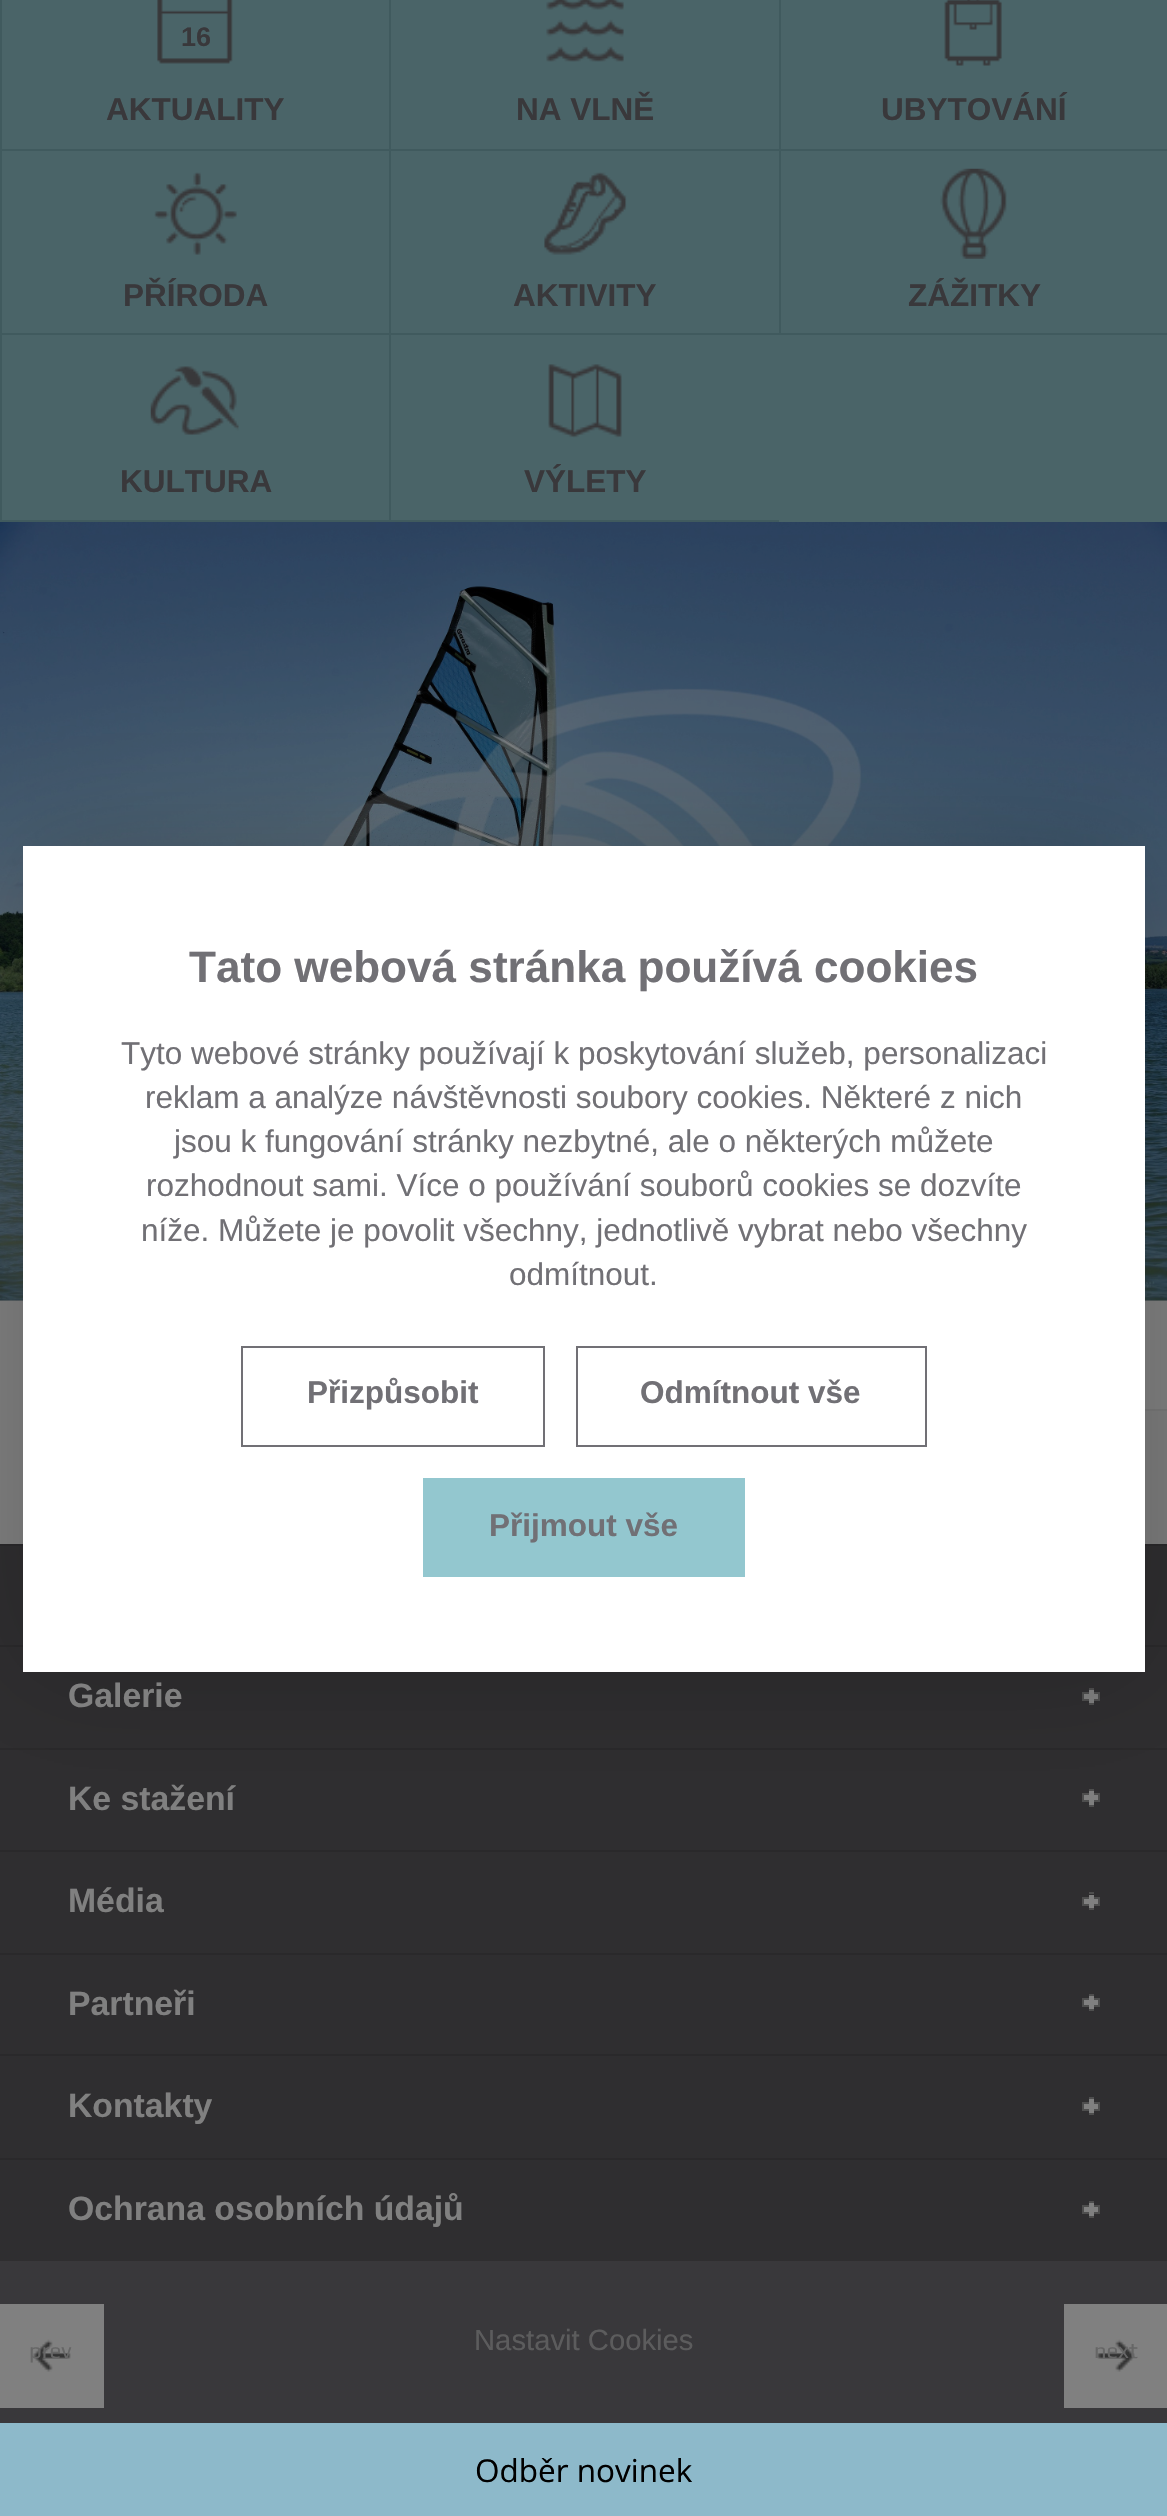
static SkFont makeFont(const char* family, int weight, float size, bool italic = false) {
  SkFontStyle style(weight, SkFontStyle::kNormal_Width,
    italic ? SkFontStyle::kItalic_Slant : SkFontStyle::kUpright_Slant);
  SkFont result(fontMgr->matchFamilyStyle(family, style), size);
  result.setSubpixel(true);
  return result;
}

static void text(SkCanvas* c, const char* s, float x, float y, const SkFont& font, SkColor color) {
  SkPaint ink(SkColor4f::FromColor(color));
  ink.setAntiAlias(true);
  c->drawString(s, x, y, font, ink);
}

static void box(SkCanvas* c, float l, float t, float r, float b, SkColor color) {
  SkPaint ink(SkColor4f::FromColor(color));
  ink.setAntiAlias(true);
  c->drawRect(SkRect::MakeLTRB(l, t, r, b), ink);
}

static void picture(SkCanvas* c, const char* path, float l, float t, float r, float b) {
  auto image = SkImages::DeferredFromEncodedData(SkData::MakeFromFileName(path));
  c->drawImageRect(image, SkRect::MakeLTRB(l, t, r, b), SkSamplingOptions());
}

void draw(SkCanvas* c) {
  SkPaint paint;
  paint.setAntiAlias(true);
  c->clear(0xff767676);
  box(c, 2, 0, 1167, 522, 0xff4a6468);
  box(c, 0, 149, 1167, 151, 0xff405a5e);
  box(c, 0, 0, 2, 151, 0xff405a5e);
  picture(c, "img_01.png", 157, 0, 233, 64);
  SkFont face1 = makeFont("Arimo", 700, 27);
  text(c, "16", 181, 46, face1, 0xff39383b);
  SkFont face2 = makeFont("Arimo", 700, 31.5f);
  text(c, "AKTUALITY", 106, 120, face2, 0xff39383b);
  box(c, 389, 0, 391, 151, 0xff405a5e);
  picture(c, "img_02.png", 546, 0, 624, 62);
  text(c, "NA VLNĚ", 516, 120, face2, 0xff39383b);
  box(c, 779, 0, 781, 151, 0xff405a5e);
  picture(c, "img_03.png", 944, 0, 1002, 66);
  text(c, "UBYTOVÁNÍ", 881, 120, face2, 0xff39383b);
  box(c, 0, 333, 1167, 335, 0xff405a5e);
  box(c, 0, 151, 2, 335, 0xff405a5e);
  picture(c, "img_04.png", 154, 172, 237, 255);
  text(c, "PŘÍRODA", 123, 306, face2, 0xff39383b);
  box(c, 389, 151, 391, 335, 0xff405a5e);
  picture(c, "img_05.png", 544, 172, 627, 255);
  text(c, "AKTIVITY", 513, 306, face2, 0xff39383b);
  box(c, 779, 151, 781, 335, 0xff405a5e);
  picture(c, "img_06.png", 940, 168, 1007, 259);
  text(c, "ZÁŽITKY", 908, 306, face2, 0xff39383b);
  box(c, 0, 520, 779, 522, 0xff405a5e);
  box(c, 0, 335, 2, 522, 0xff405a5e);
  picture(c, "img_07.png", 150, 366, 239, 435);
  text(c, "KULTURA", 120, 492, face2, 0xff39383b);
  box(c, 389, 335, 391, 522, 0xff405a5e);
  picture(c, "img_08.png", 548, 364, 622, 438);
  text(c, "VÝLETY", 524, 492, face2, 0xff39383b);
  box(c, 0, 1546, 1167, 2261, 0xff2f2e30);
  box(c, 0, 1544, 1167, 1546, 0xff2a292b);
  box(c, 0, 1645, 1167, 1647, 0xff2a292b);
  paint.setColor(0xff808080);
  c->drawRect(SkRect::MakeLTRB(1083, 1693, 1099, 1700), paint);
  paint.setStyle(SkPaint::kStroke_Style);
  paint.setStrokeWidth(2);
  paint.setColor(0xff4e4e4e);
  c->drawRect(SkRect::MakeLTRB(1083, 1693, 1099, 1700), paint);
  box(c, 1089, 1690, 1094, 1703, 0xff808080);
  box(c, 1089, 1688, 1094, 1690, 0xff4e4e4e);
  box(c, 1089, 1703, 1094, 1705, 0xff4e4e4e);
  box(c, 0, 1748, 1167, 1750, 0xff2a292b);
  paint.setStyle(SkPaint::kFill_Style);
  paint.setColor(0xff808080);
  c->drawRect(SkRect::MakeLTRB(1083, 1794, 1099, 1801), paint);
  paint.setStyle(SkPaint::kStroke_Style);
  paint.setColor(0xff4e4e4e);
  c->drawRect(SkRect::MakeLTRB(1083, 1794, 1099, 1801), paint);
  box(c, 1089, 1791, 1094, 1805, 0xff808080);
  box(c, 1089, 1789, 1094, 1791, 0xff4e4e4e);
  box(c, 1089, 1805, 1094, 1807, 0xff4e4e4e);
  picture(c, "img_09.png", 0, 522, 1167, 1301);
  box(c, 0, 1301, 1167, 1544, 0xff808080);
  box(c, 1145, 1411, 1167, 1544, 0xff7c7c7c);
  box(c, 1145, 1409, 1167, 1411, 0xff777777);
  paint.setStyle(SkPaint::kFill_Style);
  paint.setColor(0x33000000);
  paint.setMaskFilter(SkMaskFilter::MakeBlur(kNormal_SkBlurStyle, 56));
  c->drawRect(SkRect::MakeLTRB(23, 846, 1145, 1672), paint);
  paint.setMaskFilter(nullptr);
  box(c, 23, 846, 1145, 1672, 0xffffffff);
  SkFont face3 = makeFont("Arimo", 700, 44.1f);
  text(c, "Tato webová stránka používá cookies", 189, 982, face3, 0xff717075);
  SkFont face4 = makeFont("Arimo", 400, 31.5f);
  text(c, "Tyto webové stránky používají k poskytování služeb, personalizaci", 121, 1064, face4, 0xff717075);
  text(c, "reklam a analýze návštěvnosti soubory cookies. Některé z nich", 145, 1108, face4, 0xff717075);
  text(c, "jsou k fungování stránky nezbytné, ale o některých můžete", 174, 1152, face4, 0xff717075);
  text(c, "rozhodnout sami. Více o používání souborů cookies se dozvíte", 146, 1196, face4, 0xff717075);
  text(c, "níže. Můžete je povolit všechny, jednotlivě vybrat nebo všechny", 141, 1241, face4, 0xff717075);
  text(c, "odmítnout.", 509, 1285, face4, 0xff717075);
  paint.setStyle(SkPaint::kStroke_Style);
  paint.setColor(0xff717075);
  c->drawRect(SkRect::MakeLTRB(242, 1347, 544, 1446), paint);
  text(c, "Přizpůsobit", 307, 1403, face2, 0xff717075);
  c->drawRect(SkRect::MakeLTRB(577, 1347, 926, 1446), paint);
  text(c, "Odmítnout vše", 640, 1403, face2, 0xff717075);
  box(c, 423, 1478, 745, 1577, 0xff93c7cf);
  text(c, "Přijmout vše", 489, 1536, face2, 0xff717075);
  box(c, 0, 2261, 1167, 2423, 0xff39383b);
  SkFont face5 = makeFont("Arimo", 700, 33.75f);
  text(c, "Galerie", 68, 1707, face5, 0xff808080);
  text(c, "Ke stažení", 68, 1810, face5, 0xff808080);
  box(c, 0, 1850, 1167, 1852, 0xff2a292b);
  text(c, "Média", 68, 1912, face5, 0xff808080);
  paint.setStyle(SkPaint::kFill_Style);
  paint.setColor(0xff808080);
  c->drawRect(SkRect::MakeLTRB(1083, 1898, 1099, 1905), paint);
  paint.setStyle(SkPaint::kStroke_Style);
  paint.setColor(0xff4e4e4e);
  c->drawRect(SkRect::MakeLTRB(1083, 1898, 1099, 1905), paint);
  box(c, 1089, 1895, 1094, 1908, 0xff808080);
  box(c, 1089, 1892, 1094, 1894, 0xff4e4e4e);
  box(c, 1089, 1908, 1094, 1910, 0xff4e4e4e);
  box(c, 0, 1953, 1167, 1955, 0xff2a292b);
  text(c, "Partneři", 68, 2015, face5, 0xff808080);
  paint.setStyle(SkPaint::kFill_Style);
  paint.setColor(0xff808080);
  c->drawRect(SkRect::MakeLTRB(1083, 1999, 1099, 2006), paint);
  paint.setStyle(SkPaint::kStroke_Style);
  paint.setColor(0xff4e4e4e);
  c->drawRect(SkRect::MakeLTRB(1083, 1999, 1099, 2006), paint);
  box(c, 1089, 1996, 1094, 2009, 0xff808080);
  box(c, 1089, 1994, 1094, 1996, 0xff4e4e4e);
  box(c, 1089, 2009, 1094, 2011, 0xff4e4e4e);
  box(c, 0, 2054, 1167, 2056, 0xff2a292b);
  text(c, "Kontakty", 68, 2117, face5, 0xff808080);
  paint.setStyle(SkPaint::kFill_Style);
  paint.setColor(0xff808080);
  c->drawRect(SkRect::MakeLTRB(1083, 2103, 1099, 2110), paint);
  paint.setStyle(SkPaint::kStroke_Style);
  paint.setColor(0xff4e4e4e);
  c->drawRect(SkRect::MakeLTRB(1083, 2103, 1099, 2110), paint);
  box(c, 1089, 2099, 1094, 2113, 0xff808080);
  box(c, 1089, 2097, 1094, 2099, 0xff4e4e4e);
  box(c, 1089, 2113, 1094, 2115, 0xff4e4e4e);
  box(c, 0, 2158, 1167, 2160, 0xff2a292b);
  text(c, "Ochrana osobních údajů", 68, 2220, face5, 0xff808080);
  paint.setStyle(SkPaint::kFill_Style);
  paint.setColor(0xff808080);
  c->drawRect(SkRect::MakeLTRB(1083, 2206, 1099, 2213), paint);
  paint.setStyle(SkPaint::kStroke_Style);
  paint.setColor(0xff4e4e4e);
  c->drawRect(SkRect::MakeLTRB(1083, 2206, 1099, 2213), paint);
  box(c, 1089, 2203, 1094, 2216, 0xff808080);
  box(c, 1089, 2201, 1094, 2203, 0xff4e4e4e);
  box(c, 1089, 2216, 1094, 2218, 0xff4e4e4e);
  SkFont face6 = makeFont("Arimo", 400, 29.25f);
  text(c, "Nastavit Cookies", 474, 2350, face6, 0xff5c5c5d);
  box(c, 0, 2304, 104, 2408, 0xff808080);
  picture(c, "img_10.png", 33, 2339, 71, 2372);
  SkFont face7 = makeFont("Play", 400, 22);
  text(c, "prev", 29, 2358, face7, 0xff666666);
  box(c, 1064, 2304, 1167, 2408, 0xff808080);
  picture(c, "img_11.png", 1097, 2339, 1135, 2372);
  text(c, "next", 1094, 2358, face7, 0xff666666);
  box(c, 0, 2423, 1167, 2516, 0xff8db9ca);
  SkFont face8 = makeFont("Open Sans", 400, 31.5f);
  text(c, "Odběr novinek", 475, 2482, face8, 0xff000000);
}
